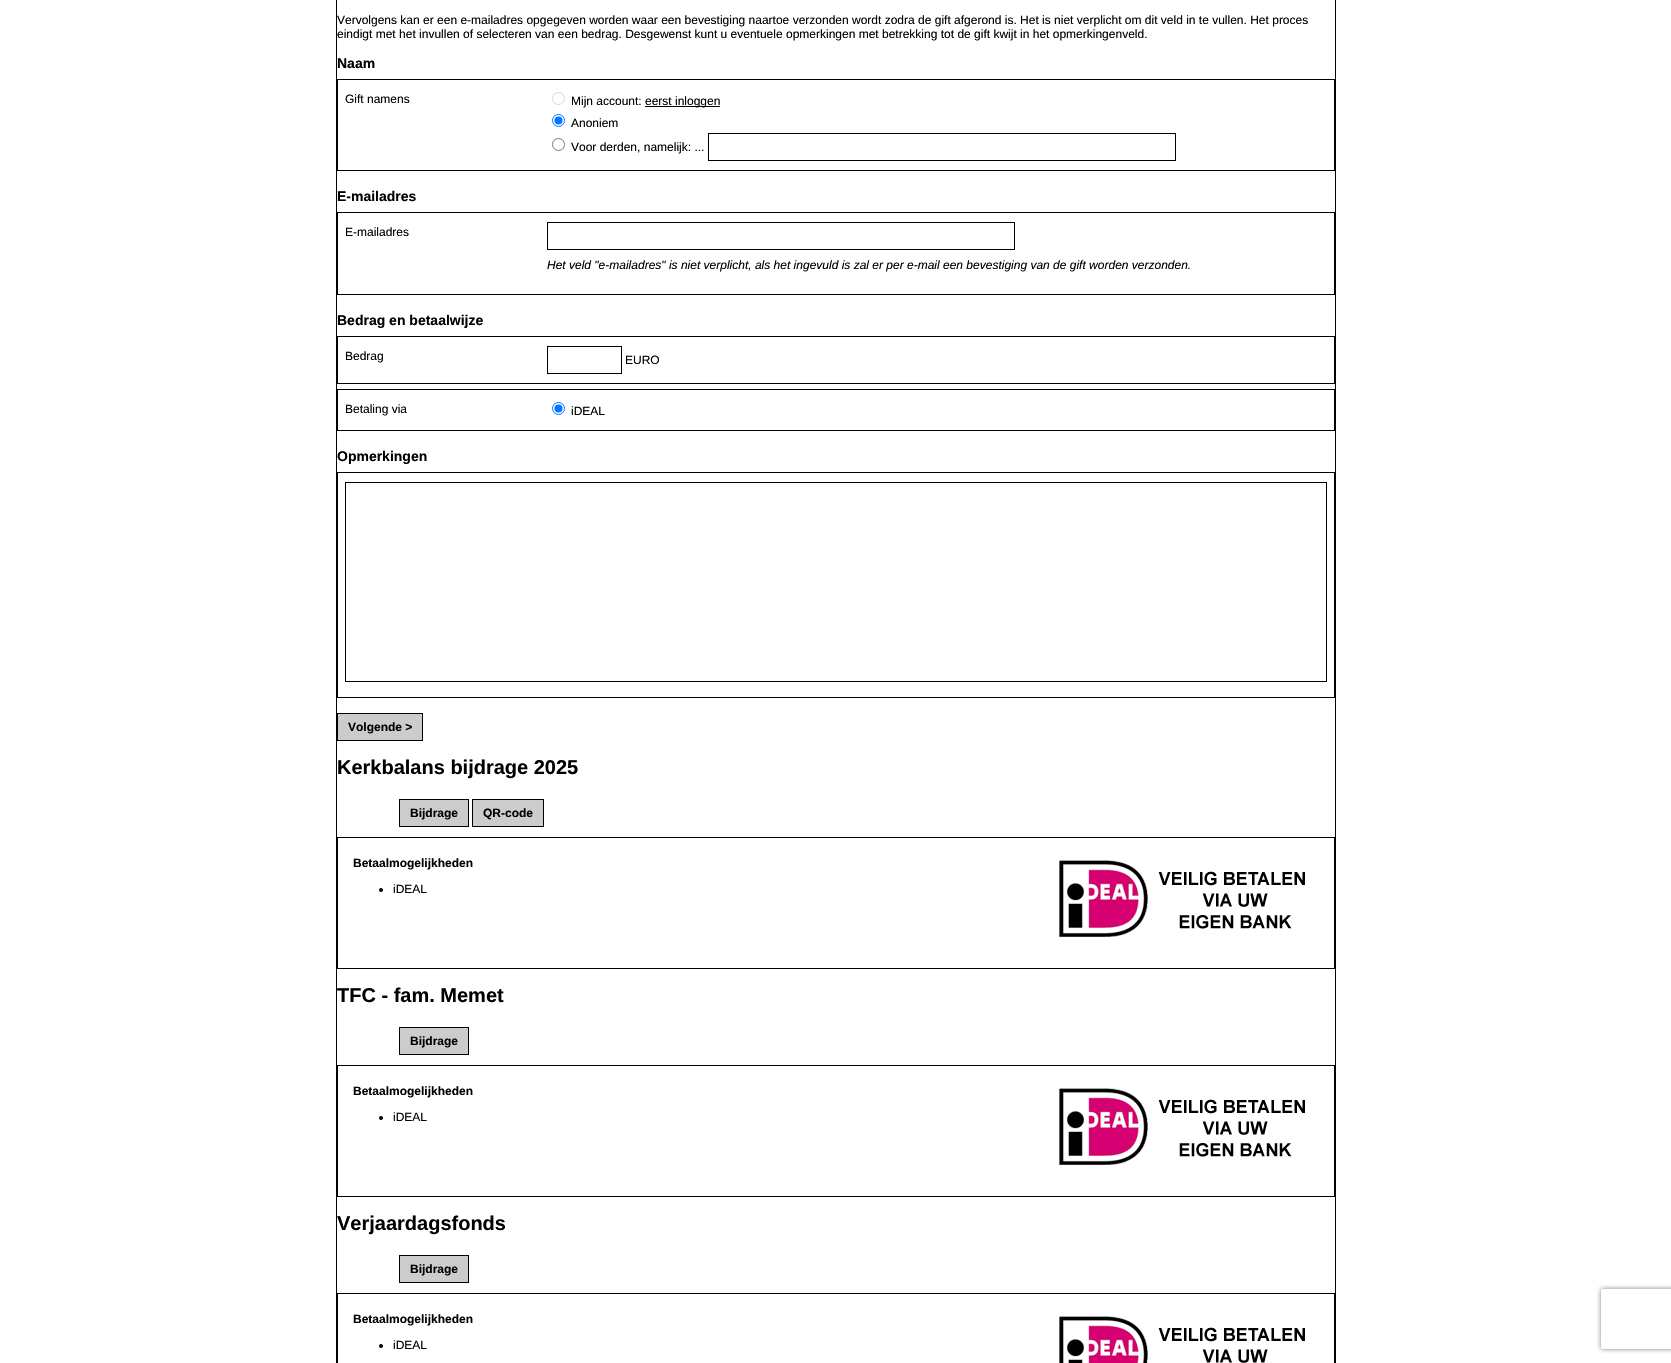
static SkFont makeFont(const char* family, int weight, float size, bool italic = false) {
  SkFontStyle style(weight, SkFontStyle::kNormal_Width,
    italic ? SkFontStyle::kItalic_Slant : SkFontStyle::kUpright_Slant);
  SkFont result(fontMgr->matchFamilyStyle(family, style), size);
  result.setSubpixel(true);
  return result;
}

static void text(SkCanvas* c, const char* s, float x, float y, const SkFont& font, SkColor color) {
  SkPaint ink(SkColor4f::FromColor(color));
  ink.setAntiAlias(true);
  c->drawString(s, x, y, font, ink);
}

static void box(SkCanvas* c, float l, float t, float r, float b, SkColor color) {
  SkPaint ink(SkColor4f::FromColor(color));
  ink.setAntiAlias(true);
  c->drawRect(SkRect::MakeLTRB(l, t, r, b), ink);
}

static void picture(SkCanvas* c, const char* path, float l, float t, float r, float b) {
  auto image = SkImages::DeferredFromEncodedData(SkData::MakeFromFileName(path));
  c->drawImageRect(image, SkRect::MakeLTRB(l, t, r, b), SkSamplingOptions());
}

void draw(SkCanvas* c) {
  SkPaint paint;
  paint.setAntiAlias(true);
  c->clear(0xffffffff);
  paint.setStyle(SkPaint::kStroke_Style);
  paint.setStrokeWidth(1);
  paint.setColor(0xff000000);
  c->drawRect(SkRect::MakeLTRB(336.5f, -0.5f, 1335.5f, 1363.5f), paint);
  SkFont face1 = makeFont("Liberation Sans", 400, 12);
  text(c, "Vervolgens kan er een e-mailadres opgegeven worden waar een bevestiging naartoe verzonden wordt zodra de gift afgerond is. Het is niet verplicht om dit veld in te vullen. Het proces", 337, 24, face1, 0xff000000);
  text(c, "eindigt met het invullen of selecteren van een bedrag. Desgewenst kunt u eventuele opmerkingen met betrekking tot de gift kwijt in het opmerkingenveld.", 337, 38, face1, 0xff000000);
  SkFont face2 = makeFont("Liberation Sans", 700, 14);
  text(c, "Naam", 337, 68, face2, 0xff000000);
  c->drawRect(SkRect::MakeLTRB(337.5f, 79.5f, 1334.5f, 170.5f), paint);
  text(c, "Gift namens", 345, 103, face1, 0xff000000);
  paint.setColor(0xffd6d6d6);
  c->drawCircle(558.5f, 98.5f, 6, paint);
  text(c, "Mijn account:", 571, 105, face1, 0xff000000);
  box(c, 645, 106, 720, 107, 0xff000000);
  text(c, "eerst inloggen", 645, 105, face1, 0xff000000);
  paint.setColor(0xff0075ff);
  c->drawCircle(558.5f, 120.5f, 6, paint);
  paint.setStyle(SkPaint::kFill_Style);
  c->drawCircle(558.5f, 120.5f, 4, paint);
  text(c, "Anoniem", 571, 127, face1, 0xff000000);
  paint.setStyle(SkPaint::kStroke_Style);
  paint.setColor(0xff767676);
  c->drawCircle(558.5f, 144.5f, 6, paint);
  text(c, "Voor derden, namelijk: ...", 571, 151, face1, 0xff000000);
  paint.setColor(0xff000000);
  c->drawRect(SkRect::MakeLTRB(708.5f, 133.5f, 1175.5f, 160.5f), paint);
  text(c, "E-mailadres", 337, 201, face2, 0xff000000);
  c->drawRect(SkRect::MakeLTRB(337.5f, 212.5f, 1334.5f, 294.5f), paint);
  text(c, "E-mailadres", 345, 236, face1, 0xff000000);
  c->drawRect(SkRect::MakeLTRB(547.5f, 222.5f, 1014.5f, 249.5f), paint);
  SkFont face3 = makeFont("Liberation Sans", 400, 12, true);
  text(c, "Het veld \"e-mailadres\" is niet verplicht, als het ingevuld is zal er per e-mail een bevestiging van de gift worden verzonden.", 547, 269, face3, 0xff000000);
  text(c, "Bedrag en betaalwijze", 337, 325, face2, 0xff000000);
  c->drawRect(SkRect::MakeLTRB(337.5f, 336.5f, 1334.5f, 383.5f), paint);
  text(c, "Bedrag", 345, 360, face1, 0xff000000);
  c->drawRect(SkRect::MakeLTRB(547.5f, 346.5f, 621.5f, 373.5f), paint);
  text(c, "EURO", 625, 364, face1, 0xff000000);
  c->drawRect(SkRect::MakeLTRB(337.5f, 389.5f, 1334.5f, 430.5f), paint);
  text(c, "Betaling via", 345, 413, face1, 0xff000000);
  paint.setColor(0xff0075ff);
  c->drawCircle(558.5f, 408.5f, 6, paint);
  paint.setStyle(SkPaint::kFill_Style);
  c->drawCircle(558.5f, 408.5f, 4, paint);
  text(c, "iDEAL", 571, 415, face1, 0xff000000);
  text(c, "Opmerkingen", 337, 461, face2, 0xff000000);
  paint.setStyle(SkPaint::kStroke_Style);
  paint.setColor(0xff000000);
  c->drawRect(SkRect::MakeLTRB(337.5f, 472.5f, 1334.5f, 697.5f), paint);
  c->drawRect(SkRect::MakeLTRB(345.5f, 482.5f, 1326.5f, 681.5f), paint);
  paint.setStyle(SkPaint::kFill_Style);
  paint.setColor(0xffcccccc);
  c->drawRect(SkRect::MakeLTRB(337.5f, 713.5f, 422.5f, 740.5f), paint);
  paint.setStyle(SkPaint::kStroke_Style);
  paint.setColor(0xff000000);
  c->drawRect(SkRect::MakeLTRB(337.5f, 713.5f, 422.5f, 740.5f), paint);
  SkFont face4 = makeFont("Liberation Sans", 700, 12);
  text(c, "Volgende >", 348, 731, face4, 0xff000000);
  SkFont face5 = makeFont("Liberation Sans", 700, 20);
  text(c, "Kerkbalans bijdrage 2025", 337, 774, face5, 0xff000000);
  paint.setStyle(SkPaint::kFill_Style);
  paint.setColor(0xffcccccc);
  c->drawRect(SkRect::MakeLTRB(399.5f, 799.5f, 468.5f, 826.5f), paint);
  paint.setStyle(SkPaint::kStroke_Style);
  paint.setColor(0xff000000);
  c->drawRect(SkRect::MakeLTRB(399.5f, 799.5f, 468.5f, 826.5f), paint);
  text(c, "Bijdrage", 410, 817, face4, 0xff000000);
  paint.setStyle(SkPaint::kFill_Style);
  paint.setColor(0xffcccccc);
  c->drawRect(SkRect::MakeLTRB(472.5f, 799.5f, 543.5f, 826.5f), paint);
  paint.setStyle(SkPaint::kStroke_Style);
  paint.setColor(0xff000000);
  c->drawRect(SkRect::MakeLTRB(472.5f, 799.5f, 543.5f, 826.5f), paint);
  text(c, "QR-code", 483, 817, face4, 0xff000000);
  c->drawRect(SkRect::MakeLTRB(337.5f, 837.5f, 1334.5f, 968.5f), paint);
  text(c, "Betaalmogelijkheden", 353, 867, face4, 0xff000000);
  picture(c, "img_01.png", 1059, 860, 1305, 937);
  paint.setStyle(SkPaint::kFill_Style);
  c->drawCircle(381, 890, 2, paint);
  text(c, "iDEAL", 393, 893, face1, 0xff000000);
  c->save();
  c->clipRect(SkRect::MakeLTRB(337, 0, 1335, 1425));
  text(c, "TFC - fam. Memet", 337, 1002, face5, 0xff000000);
  c->restore();
  paint.setColor(0xffcccccc);
  c->drawRect(SkRect::MakeLTRB(399.5f, 1027.5f, 468.5f, 1054.5f), paint);
  paint.setStyle(SkPaint::kStroke_Style);
  paint.setColor(0xff000000);
  c->drawRect(SkRect::MakeLTRB(399.5f, 1027.5f, 468.5f, 1054.5f), paint);
  text(c, "Bijdrage", 410, 1045, face4, 0xff000000);
  c->drawRect(SkRect::MakeLTRB(337.5f, 1065.5f, 1334.5f, 1196.5f), paint);
  text(c, "Betaalmogelijkheden", 353, 1095, face4, 0xff000000);
  picture(c, "img_01.png", 1059, 1088, 1305, 1165);
  paint.setStyle(SkPaint::kFill_Style);
  c->drawCircle(381, 1118, 2, paint);
  text(c, "iDEAL", 393, 1121, face1, 0xff000000);
  text(c, "Verjaardagsfonds", 337, 1230, face5, 0xff000000);
  paint.setColor(0xffcccccc);
  c->drawRect(SkRect::MakeLTRB(399.5f, 1255.5f, 468.5f, 1282.5f), paint);
  paint.setStyle(SkPaint::kStroke_Style);
  paint.setColor(0xff000000);
  c->drawRect(SkRect::MakeLTRB(399.5f, 1255.5f, 468.5f, 1282.5f), paint);
  text(c, "Bijdrage", 410, 1273, face4, 0xff000000);
  c->drawRect(SkRect::MakeLTRB(337.5f, 1293.5f, 1334.5f, 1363.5f), paint);
  text(c, "Betaalmogelijkheden", 353, 1323, face4, 0xff000000);
  picture(c, "img_02.png", 1059, 1316, 1305, 1363);
  paint.setStyle(SkPaint::kFill_Style);
  c->drawCircle(381, 1346, 2, paint);
  text(c, "iDEAL", 393, 1349, face1, 0xff000000);
  c->save();
  c->clipPath(SkPathBuilder(SkPathFillType::kEvenOdd).moveTo(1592, 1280).lineTo(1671, 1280).lineTo(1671, 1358).lineTo(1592, 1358).close().moveTo(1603, 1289).lineTo(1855, 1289).cubicTo(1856, 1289, 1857, 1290, 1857, 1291).lineTo(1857, 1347).cubicTo(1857, 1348, 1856, 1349, 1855, 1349).lineTo(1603, 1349).cubicTo(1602, 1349, 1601, 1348, 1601, 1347).lineTo(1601, 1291).cubicTo(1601, 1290, 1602, 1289, 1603, 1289).close().detach(), true);
  paint.setColor(0xff808080);
  paint.setMaskFilter(SkMaskFilter::MakeBlur(kNormal_SkBlurStyle, 2.5f));
  c->drawRoundRect(SkRect::MakeLTRB(1601, 1289, 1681, 1349), 2, 2, paint);
  paint.setMaskFilter(nullptr);
  c->restore();
}
